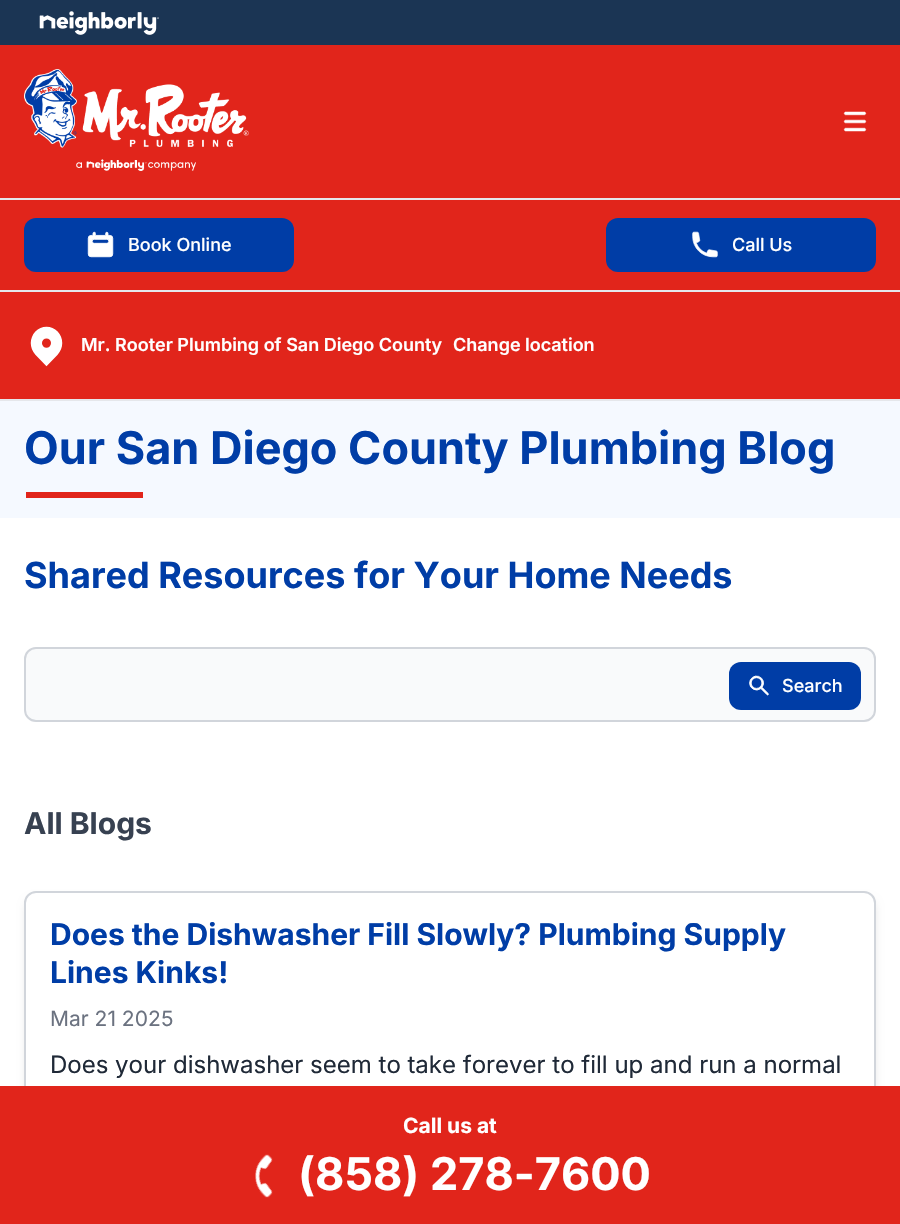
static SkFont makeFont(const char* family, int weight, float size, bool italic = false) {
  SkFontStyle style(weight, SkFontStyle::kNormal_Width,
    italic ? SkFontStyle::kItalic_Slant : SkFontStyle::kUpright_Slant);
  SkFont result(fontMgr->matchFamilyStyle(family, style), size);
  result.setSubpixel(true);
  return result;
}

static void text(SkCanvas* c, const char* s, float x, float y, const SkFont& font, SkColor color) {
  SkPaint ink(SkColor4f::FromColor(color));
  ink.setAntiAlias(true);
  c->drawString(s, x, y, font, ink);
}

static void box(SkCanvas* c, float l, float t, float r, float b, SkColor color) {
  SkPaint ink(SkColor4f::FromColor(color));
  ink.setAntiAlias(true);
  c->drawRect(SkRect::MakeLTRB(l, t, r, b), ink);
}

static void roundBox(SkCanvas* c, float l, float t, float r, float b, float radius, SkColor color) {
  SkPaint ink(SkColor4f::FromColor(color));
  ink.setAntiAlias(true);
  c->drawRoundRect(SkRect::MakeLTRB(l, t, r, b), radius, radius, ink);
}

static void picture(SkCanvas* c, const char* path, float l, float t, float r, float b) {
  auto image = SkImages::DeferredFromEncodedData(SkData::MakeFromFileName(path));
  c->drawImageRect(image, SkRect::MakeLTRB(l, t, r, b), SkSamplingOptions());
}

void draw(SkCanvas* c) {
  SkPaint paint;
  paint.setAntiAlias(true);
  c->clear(0xffffffff);
  box(c, 0, 0, 900, 45, 0xff1b3554);
  picture(c, "img_01.png", 39, 11, 159, 35);
  box(c, 0, 45, 900, 399, 0xffe1251b);
  picture(c, "img_02.png", 24, 69, 249, 171);
  picture(c, "img_03.png", 843, 111, 867, 132);
  box(c, 0, 198, 900, 200, 0xffe5e7eb);
  box(c, 0, 290, 900, 292, 0xffe5e7eb);
  roundBox(c, 24, 218, 294, 272, 12, 0xff003da6);
  picture(c, "img_04.png", 87, 231, 114, 258);
  SkFont face1 = makeFont("Inter", 500, 18);
  text(c, "Book Online", 128, 251, face1, 0xffffffff);
  roundBox(c, 606, 218, 876, 272, 12, 0xff003da6);
  picture(c, "img_05.png", 692, 231, 718, 258);
  text(c, "Call Us", 732, 251, face1, 0xffffffff);
  box(c, 0, 399, 900, 401, 0xffe5e7eb);
  picture(c, "img_06.png", 30, 326, 63, 367);
  SkFont face2 = makeFont("Inter", 600, 18);
  text(c, "Mr. Rooter Plumbing of San Diego County", 81, 351, face2, 0xffffffff);
  text(c, "Change location", 453, 351, face2, 0xffffffff);
  box(c, 0, 401, 900, 518, 0xfff5f9ff);
  SkFont face3 = makeFont("Inter", 700, 45);
  text(c, "Our San Diego County Plumbing Blog", 24, 464, face3, 0xff003da6);
  box(c, 26, 492, 143, 498, 0xffe1251b);
  SkFont face4 = makeFont("Inter", 700, 36);
  text(c, "Shared Resources for Your Home Needs", 24, 588, face4, 0xff003da6);
  paint.setColor(0xfff9fafb);
  c->drawRoundRect(SkRect::MakeLTRB(25, 648, 875, 721), 11, 11, paint);
  paint.setStyle(SkPaint::kStroke_Style);
  paint.setStrokeWidth(2);
  paint.setColor(0xffd1d5db);
  c->drawRoundRect(SkRect::MakeLTRB(25, 648, 875, 721), 11, 11, paint);
  roundBox(c, 729, 662, 861, 710, 12, 0xff003da6);
  picture(c, "img_07.png", 749, 675, 769, 696);
  text(c, "Search", 782, 692, face1, 0xffffffff);
  SkFont face5 = makeFont("Inter", 700, 30);
  text(c, "All Blogs", 24, 834, face5, 0xff374151);
  paint.setStyle(SkPaint::kFill_Style);
  paint.setColor(0x1a000000);
  paint.setMaskFilter(SkMaskFilter::MakeBlur(kNormal_SkBlurStyle, 4.5f));
  c->drawRoundRect(SkRect::MakeLTRB(26, 899, 875, 1190), 11, 11, paint);
  paint.setMaskFilter(nullptr);
  paint.setColor(0xffffffff);
  c->drawRoundRect(SkRect::MakeLTRB(25, 892, 875, 1184), 11, 11, paint);
  paint.setStyle(SkPaint::kStroke_Style);
  paint.setColor(0xffd1d5db);
  c->drawRoundRect(SkRect::MakeLTRB(25, 892, 875, 1184), 11, 11, paint);
  text(c, "Does the Dishwasher Fill Slowly? Plumbing Supply", 50, 945, face5, 0xff003da6);
  text(c, "Lines Kinks!", 50, 983, face5, 0xff003da6);
  SkFont face6 = makeFont("Inter", 400, 21);
  text(c, "Mar 21 2025", 50, 1026, face6, 0xff6b7280);
  SkFont face7 = makeFont("Inter", 400, 24);
  text(c, "Does your dishwasher seem to take forever to fill up and run a normal", 50, 1073, face7, 0xff1f2937);
  box(c, 0, 1086, 900, 1224, 0xffe1251b);
  SkFont face8 = makeFont("Inter", 700, 21);
  text(c, "Call us at", 403, 1133, face8, 0xffffffff);
  picture(c, "img_08.png", 255, 1154, 273, 1198);
  text(c, "(858) 278-7600", 298, 1190, face3, 0xffffffff);
}
